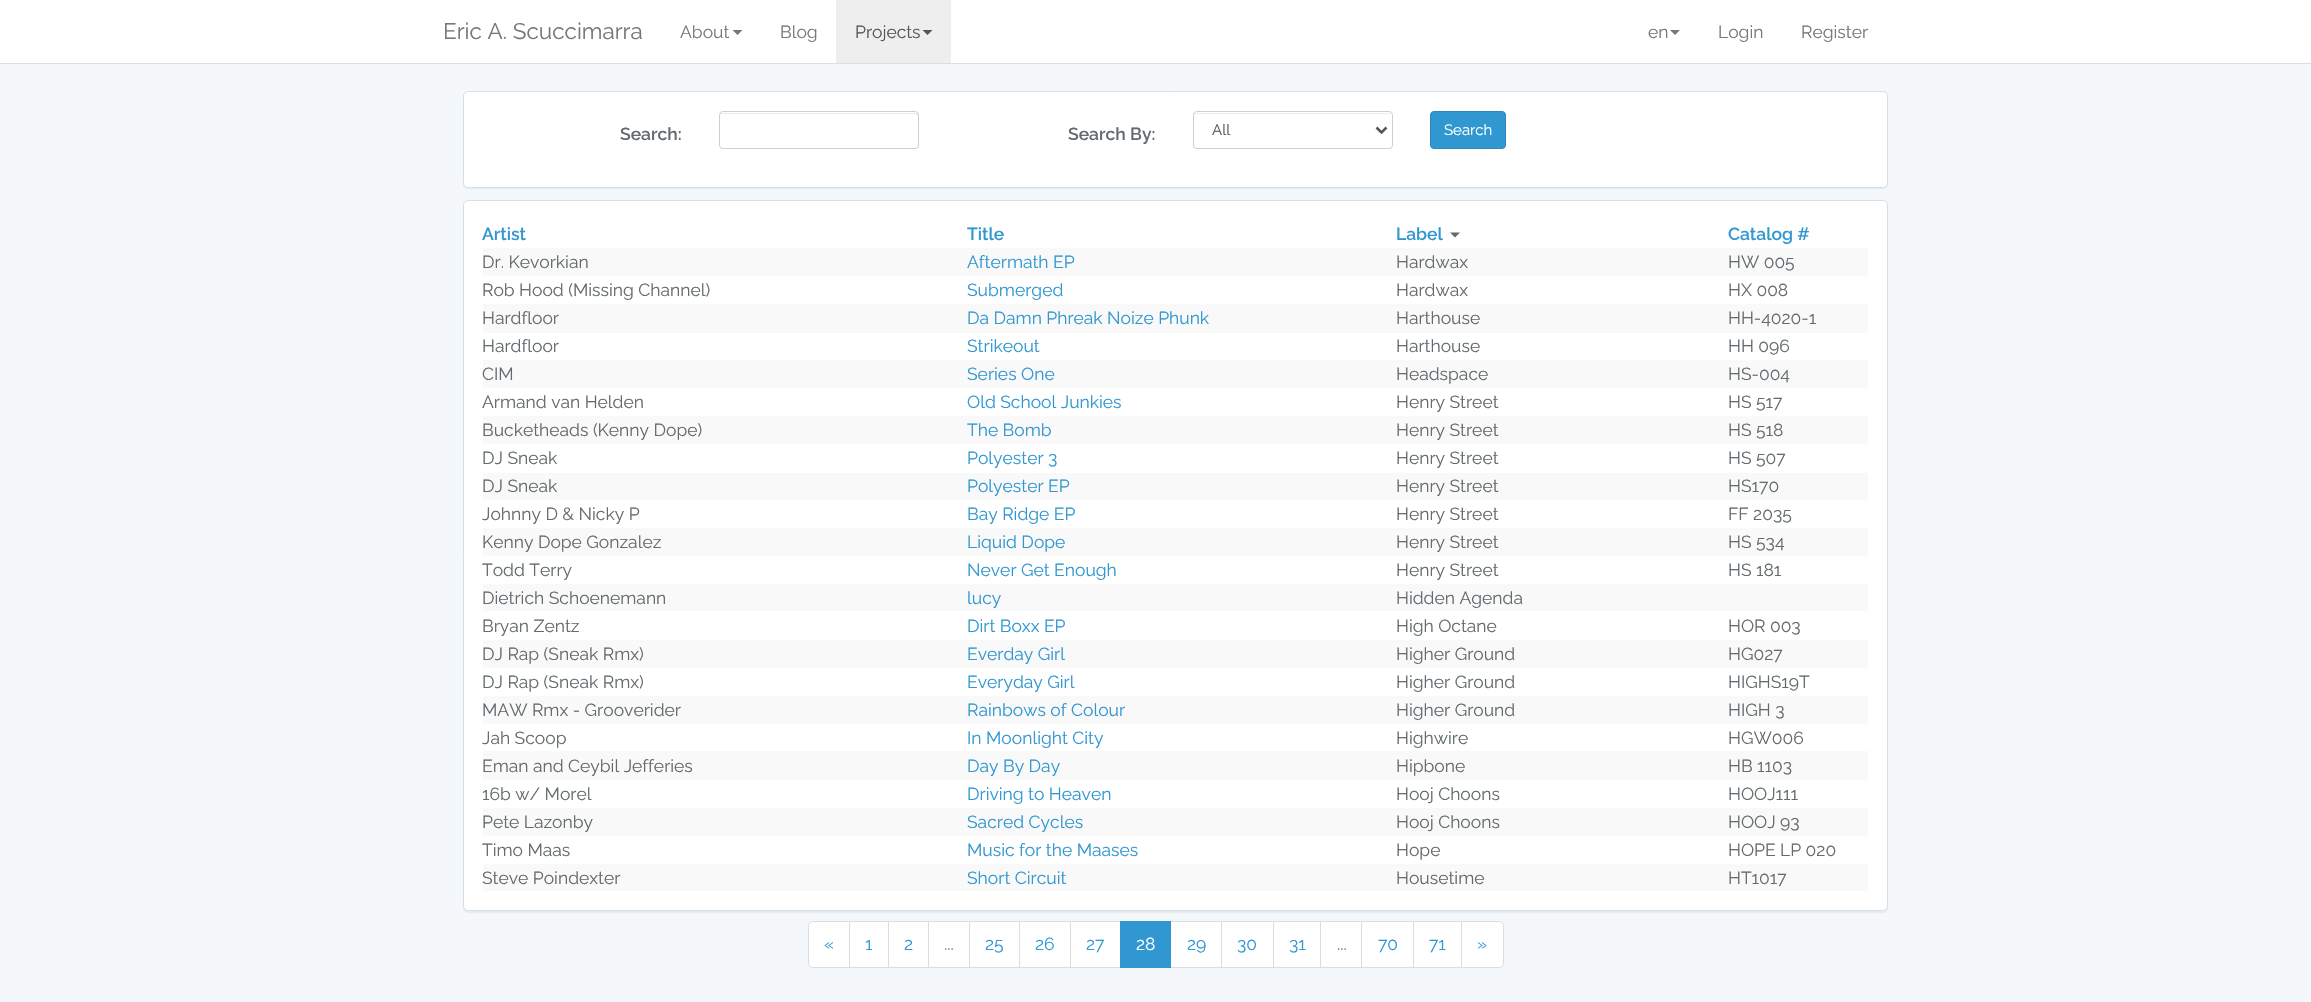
static SkFont makeFont(const char* family, int weight, float size, bool italic = false) {
  SkFontStyle style(weight, SkFontStyle::kNormal_Width,
    italic ? SkFontStyle::kItalic_Slant : SkFontStyle::kUpright_Slant);
  SkFont result(fontMgr->matchFamilyStyle(family, style), size);
  result.setSubpixel(true);
  return result;
}

static void text(SkCanvas* c, const char* s, float x, float y, const SkFont& font, SkColor color) {
  SkPaint ink(SkColor4f::FromColor(color));
  ink.setAntiAlias(true);
  c->drawString(s, x, y, font, ink);
}

static void box(SkCanvas* c, float l, float t, float r, float b, SkColor color) {
  SkPaint ink(SkColor4f::FromColor(color));
  ink.setAntiAlias(true);
  c->drawRect(SkRect::MakeLTRB(l, t, r, b), ink);
}

void draw(SkCanvas* c) {
  SkPaint paint;
  paint.setAntiAlias(true);
  c->clear(0xfff5f8fa);
  box(c, 0, 0, 2311, 63, 0xffffffff);
  box(c, 0, 63, 2311, 64, 0xffd3e0e9);
  SkFont face1 = makeFont("Raleway", 400, 22.5f);
  text(c, "Eric A. Scuccimarra", 443, 39, face1, 0xff777777);
  SkFont face2 = makeFont("Raleway", 400, 17.5f);
  text(c, "About", 680, 38, face2, 0xff777777);
  paint.setColor(0xff777777);
  c->drawPath(SkPathBuilder().moveTo(732.5f, 30).lineTo(742.5f, 30).lineTo(737.5f, 35).close().detach(), paint);
  text(c, "Blog", 780, 38, face2, 0xff777777);
  box(c, 836, 0, 951, 63, 0xffeeeeee);
  text(c, "Projects", 855, 38, face2, 0xff555555);
  paint.setColor(0xff555555);
  c->drawPath(SkPathBuilder().moveTo(922.5f, 30).lineTo(932.5f, 30).lineTo(927.5f, 35).close().detach(), paint);
  text(c, "en", 1648, 38, face2, 0xff777777);
  paint.setColor(0xff777777);
  c->drawPath(SkPathBuilder().moveTo(1670, 30).lineTo(1680, 30).lineTo(1675, 35).close().detach(), paint);
  text(c, "Login", 1718, 38, face2, 0xff777777);
  text(c, "Register", 1801, 38, face2, 0xff777777);
  paint.setColor(0x0d000000);
  paint.setMaskFilter(SkMaskFilter::MakeBlur(kNormal_SkBlurStyle, 0.5f));
  c->drawRoundRect(SkRect::MakeLTRB(463, 93, 1888, 189), 5, 5, paint);
  paint.setMaskFilter(nullptr);
  paint.setColor(0xffffffff);
  c->drawRoundRect(SkRect::MakeLTRB(463.5f, 91.5f, 1887.5f, 187.5f), 4.5f, 4.5f, paint);
  paint.setStyle(SkPaint::kStroke_Style);
  paint.setStrokeWidth(1);
  paint.setColor(0xffd3e0e9);
  c->drawRoundRect(SkRect::MakeLTRB(463.5f, 91.5f, 1887.5f, 187.5f), 4.5f, 4.5f, paint);
  SkFont face3 = makeFont("Raleway", 600, 17.5f);
  text(c, "Search:", 620, 140, face3, 0xff636b6f);
  paint.setStyle(SkPaint::kFill_Style);
  paint.setColor(0xffececec);
  c->drawPath(SkPathBuilder().moveTo(722, 114).lineTo(915, 114).cubicTo(916, 114, 918, 115, 918, 116).lineTo(918, 114).lineTo(916, 113).lineTo(722, 113).cubicTo(721, 113, 720, 114, 720, 116).cubicTo(720, 115, 721, 114, 722, 114).close().detach(), paint);
  paint.setStyle(SkPaint::kStroke_Style);
  paint.setColor(0xffccd0d2);
  c->drawRoundRect(SkRect::MakeLTRB(719.5f, 111.5f, 918.5f, 148.5f), 3.5f, 3.5f, paint);
  text(c, "Search By:", 1068, 140, face3, 0xff636b6f);
  paint.setStyle(SkPaint::kFill_Style);
  paint.setColor(0xffececec);
  c->drawPath(SkPathBuilder().moveTo(1196, 114).lineTo(1389, 114).lineTo(1391, 115).lineTo(1391, 116).lineTo(1391, 114).lineTo(1389, 113).lineTo(1196, 113).cubicTo(1195, 113, 1194, 114, 1194, 116).cubicTo(1194, 115, 1195, 114, 1196, 114).close().detach(), paint);
  paint.setStyle(SkPaint::kStroke_Style);
  paint.setColor(0xffccd0d2);
  c->drawRoundRect(SkRect::MakeLTRB(1193.5f, 111.5f, 1392.5f, 148.5f), 3.5f, 3.5f, paint);
  paint.setStrokeWidth(2.5f);
  paint.setColor(0xff555555);
  c->drawPath(SkPathBuilder().moveTo(1376.5f, 127.5f).lineTo(1381.5f, 132.5f).lineTo(1386.5f, 127.5f).detach(), paint);
  SkFont face4 = makeFont("Raleway", 400, 15);
  text(c, "All", 1212, 135, face4, 0xff555555);
  paint.setStyle(SkPaint::kFill_Style);
  paint.setColor(0xff3097d1);
  c->drawRoundRect(SkRect::MakeLTRB(1430.5f, 111.5f, 1505.5f, 148.5f), 3.5f, 3.5f, paint);
  paint.setStyle(SkPaint::kStroke_Style);
  paint.setStrokeWidth(1);
  paint.setColor(0xff2a88bd);
  c->drawRoundRect(SkRect::MakeLTRB(1430.5f, 111.5f, 1505.5f, 148.5f), 3.5f, 3.5f, paint);
  text(c, "Search", 1444, 135, face4, 0xffffffff);
  paint.setStyle(SkPaint::kFill_Style);
  paint.setColor(0x0d000000);
  paint.setMaskFilter(SkMaskFilter::MakeBlur(kNormal_SkBlurStyle, 0.5f));
  c->drawRoundRect(SkRect::MakeLTRB(463, 201, 1888, 913), 5, 5, paint);
  paint.setMaskFilter(nullptr);
  paint.setColor(0xffffffff);
  c->drawRoundRect(SkRect::MakeLTRB(463.5f, 200.5f, 1887.5f, 910.5f), 4.5f, 4.5f, paint);
  paint.setStyle(SkPaint::kStroke_Style);
  paint.setColor(0xffd3e0e9);
  c->drawRoundRect(SkRect::MakeLTRB(463.5f, 200.5f, 1887.5f, 910.5f), 4.5f, 4.5f, paint);
  text(c, "Artist", 482, 240, face3, 0xff3097d1);
  text(c, "Title", 967, 240, face3, 0xff3097d1);
  text(c, "Label", 1396, 240, face3, 0xff3097d1);
  paint.setStyle(SkPaint::kFill_Style);
  paint.setColor(0xff636b6f);
  c->drawPath(SkPathBuilder().moveTo(1450, 232.5f).lineTo(1460, 232.5f).lineTo(1455, 237.5f).close().detach(), paint);
  text(c, "Catalog #", 1728, 240, face3, 0xff3097d1);
  box(c, 483, 248, 1868, 276, 0xfff9f9f9);
  text(c, "Dr. Kevorkian", 482, 268, face2, 0xff636b6f);
  text(c, "Aftermath EP", 967, 268, face2, 0xff3097d1);
  text(c, "Hardwax", 1396, 268, face2, 0xff636b6f);
  text(c, "HW 005", 1728, 268, face2, 0xff636b6f);
  text(c, "Rob Hood (Missing Channel)", 482, 296, face2, 0xff636b6f);
  text(c, "Submerged", 967, 296, face2, 0xff3097d1);
  text(c, "Hardwax", 1396, 296, face2, 0xff636b6f);
  text(c, "HX 008", 1728, 296, face2, 0xff636b6f);
  box(c, 483, 304, 1868, 333, 0xfff9f9f9);
  text(c, "Hardfloor", 482, 324, face2, 0xff636b6f);
  text(c, "Da Damn Phreak Noize Phunk", 967, 324, face2, 0xff3097d1);
  text(c, "Harthouse", 1396, 324, face2, 0xff636b6f);
  text(c, "HH-4020-1", 1728, 324, face2, 0xff636b6f);
  text(c, "Hardfloor", 482, 352, face2, 0xff636b6f);
  text(c, "Strikeout", 967, 352, face2, 0xff3097d1);
  text(c, "Harthouse", 1396, 352, face2, 0xff636b6f);
  text(c, "HH 096", 1728, 352, face2, 0xff636b6f);
  box(c, 483, 360, 1868, 388, 0xfff9f9f9);
  text(c, "CIM", 482, 380, face2, 0xff636b6f);
  text(c, "Series One", 967, 380, face2, 0xff3097d1);
  text(c, "Headspace", 1396, 380, face2, 0xff636b6f);
  text(c, "HS-004", 1728, 380, face2, 0xff636b6f);
  text(c, "Armand van Helden", 482, 408, face2, 0xff636b6f);
  text(c, "Old School Junkies", 967, 408, face2, 0xff3097d1);
  text(c, "Henry Street", 1396, 408, face2, 0xff636b6f);
  text(c, "HS 517", 1728, 408, face2, 0xff636b6f);
  box(c, 483, 416, 1868, 444, 0xfff9f9f9);
  text(c, "Bucketheads (Kenny Dope)", 482, 436, face2, 0xff636b6f);
  text(c, "The Bomb", 967, 436, face2, 0xff3097d1);
  text(c, "Henry Street", 1396, 436, face2, 0xff636b6f);
  text(c, "HS 518", 1728, 436, face2, 0xff636b6f);
  text(c, "DJ Sneak", 482, 464, face2, 0xff636b6f);
  text(c, "Polyester 3", 967, 464, face2, 0xff3097d1);
  text(c, "Henry Street", 1396, 464, face2, 0xff636b6f);
  text(c, "HS 507", 1728, 464, face2, 0xff636b6f);
  box(c, 483, 473, 1868, 500, 0xfff9f9f9);
  text(c, "DJ Sneak", 482, 492, face2, 0xff636b6f);
  text(c, "Polyester EP", 967, 492, face2, 0xff3097d1);
  text(c, "Henry Street", 1396, 492, face2, 0xff636b6f);
  text(c, "HS170", 1728, 492, face2, 0xff636b6f);
  text(c, "Johnny D & Nicky P", 482, 520, face2, 0xff636b6f);
  text(c, "Bay Ridge EP", 967, 520, face2, 0xff3097d1);
  text(c, "Henry Street", 1396, 520, face2, 0xff636b6f);
  text(c, "FF 2035", 1728, 520, face2, 0xff636b6f);
  box(c, 483, 528, 1868, 556, 0xfff9f9f9);
  text(c, "Kenny Dope Gonzalez", 482, 548, face2, 0xff636b6f);
  text(c, "Liquid Dope", 967, 548, face2, 0xff3097d1);
  text(c, "Henry Street", 1396, 548, face2, 0xff636b6f);
  text(c, "HS 534", 1728, 548, face2, 0xff636b6f);
  text(c, "Todd Terry", 482, 576, face2, 0xff636b6f);
  text(c, "Never Get Enough", 967, 576, face2, 0xff3097d1);
  text(c, "Henry Street", 1396, 576, face2, 0xff636b6f);
  text(c, "HS 181", 1728, 576, face2, 0xff636b6f);
  box(c, 483, 584, 1868, 611, 0xfff9f9f9);
  text(c, "Dietrich Schoenemann", 482, 604, face2, 0xff636b6f);
  text(c, "lucy", 967, 604, face2, 0xff3097d1);
  text(c, "Hidden Agenda", 1396, 604, face2, 0xff636b6f);
  text(c, "Bryan Zentz", 482, 632, face2, 0xff636b6f);
  text(c, "Dirt Boxx EP", 967, 632, face2, 0xff3097d1);
  text(c, "High Octane", 1396, 632, face2, 0xff636b6f);
  text(c, "HOR 003", 1728, 632, face2, 0xff636b6f);
  box(c, 483, 640, 1868, 668, 0xfff9f9f9);
  text(c, "DJ Rap (Sneak Rmx)", 482, 660, face2, 0xff636b6f);
  text(c, "Everday Girl", 967, 660, face2, 0xff3097d1);
  text(c, "Higher Ground", 1396, 660, face2, 0xff636b6f);
  text(c, "HG027", 1728, 660, face2, 0xff636b6f);
  text(c, "DJ Rap (Sneak Rmx)", 482, 688, face2, 0xff636b6f);
  text(c, "Everyday Girl", 967, 688, face2, 0xff3097d1);
  text(c, "Higher Ground", 1396, 688, face2, 0xff636b6f);
  text(c, "HIGHS19T", 1728, 688, face2, 0xff636b6f);
  box(c, 483, 696, 1868, 724, 0xfff9f9f9);
  text(c, "MAW Rmx - Grooverider", 482, 716, face2, 0xff636b6f);
  text(c, "Rainbows of Colour", 967, 716, face2, 0xff3097d1);
  text(c, "Higher Ground", 1396, 716, face2, 0xff636b6f);
  text(c, "HIGH 3", 1728, 716, face2, 0xff636b6f);
  text(c, "Jah Scoop", 482, 744, face2, 0xff636b6f);
  text(c, "In Moonlight City", 967, 744, face2, 0xff3097d1);
  text(c, "Highwire", 1396, 744, face2, 0xff636b6f);
  text(c, "HGW006", 1728, 744, face2, 0xff636b6f);
  box(c, 483, 751, 1868, 780, 0xfff9f9f9);
  text(c, "Eman and Ceybil Jefferies", 482, 772, face2, 0xff636b6f);
  text(c, "Day By Day", 967, 772, face2, 0xff3097d1);
  text(c, "Hipbone", 1396, 772, face2, 0xff636b6f);
  text(c, "HB 1103", 1728, 772, face2, 0xff636b6f);
  text(c, "16b w/ Morel", 482, 800, face2, 0xff636b6f);
  text(c, "Driving to Heaven", 967, 800, face2, 0xff3097d1);
  text(c, "Hooj Choons", 1396, 800, face2, 0xff636b6f);
  text(c, "HOOJ111", 1728, 800, face2, 0xff636b6f);
  box(c, 483, 808, 1868, 836, 0xfff9f9f9);
  text(c, "Pete Lazonby", 482, 828, face2, 0xff636b6f);
  text(c, "Sacred Cycles", 967, 828, face2, 0xff3097d1);
  text(c, "Hooj Choons", 1396, 828, face2, 0xff636b6f);
  text(c, "HOOJ 93", 1728, 828, face2, 0xff636b6f);
  text(c, "Timo Maas", 482, 856, face2, 0xff636b6f);
  text(c, "Music for the Maases", 967, 856, face2, 0xff3097d1);
  text(c, "Hope", 1396, 856, face2, 0xff636b6f);
  text(c, "HOPE LP 020", 1728, 856, face2, 0xff636b6f);
  box(c, 483, 864, 1868, 891, 0xfff9f9f9);
  text(c, "Steve Poindexter", 482, 884, face2, 0xff636b6f);
  text(c, "Short Circuit", 967, 884, face2, 0xff3097d1);
  text(c, "Housetime", 1396, 884, face2, 0xff636b6f);
  text(c, "HT1017", 1728, 884, face2, 0xff636b6f);
  paint.setColor(0xffffffff);
  c->drawPath(SkPathBuilder().moveTo(813, 921.5f).lineTo(849.5f, 921.5f).lineTo(849.5f, 967.5f).lineTo(813, 967.5f).cubicTo(810.5f, 967.5f, 808.5f, 965.5f, 808.5f, 963).lineTo(808.5f, 926).cubicTo(808.5f, 923.5f, 810.5f, 921.5f, 813, 921.5f).close().detach(), paint);
  paint.setStyle(SkPaint::kStroke_Style);
  paint.setColor(0xffdddddd);
  c->drawPath(SkPathBuilder().moveTo(813, 921.5f).lineTo(849.5f, 921.5f).lineTo(849.5f, 967.5f).lineTo(813, 967.5f).cubicTo(810.5f, 967.5f, 808.5f, 965.5f, 808.5f, 963).lineTo(808.5f, 926).cubicTo(808.5f, 923.5f, 810.5f, 921.5f, 813, 921.5f).close().detach(), paint);
  text(c, "«", 824, 950, face2, 0xff3097d1);
  paint.setStyle(SkPaint::kFill_Style);
  paint.setColor(0xffffffff);
  c->drawRect(SkRect::MakeLTRB(849.5f, 921.5f, 888.5f, 967.5f), paint);
  paint.setStyle(SkPaint::kStroke_Style);
  paint.setColor(0xffdddddd);
  c->drawRect(SkRect::MakeLTRB(849.5f, 921.5f, 888.5f, 967.5f), paint);
  text(c, "1", 865, 950, face2, 0xff3097d1);
  paint.setStyle(SkPaint::kFill_Style);
  paint.setColor(0xffffffff);
  c->drawRect(SkRect::MakeLTRB(888.5f, 921.5f, 928.5f, 967.5f), paint);
  paint.setStyle(SkPaint::kStroke_Style);
  paint.setColor(0xffdddddd);
  c->drawRect(SkRect::MakeLTRB(888.5f, 921.5f, 928.5f, 967.5f), paint);
  text(c, "2", 904, 950, face2, 0xff3097d1);
  paint.setStyle(SkPaint::kFill_Style);
  paint.setColor(0xffffffff);
  c->drawRect(SkRect::MakeLTRB(928.5f, 921.5f, 969.5f, 967.5f), paint);
  paint.setStyle(SkPaint::kStroke_Style);
  paint.setColor(0xffdddddd);
  c->drawRect(SkRect::MakeLTRB(928.5f, 921.5f, 969.5f, 967.5f), paint);
  text(c, "...", 944, 950, face2, 0xff777777);
  paint.setStyle(SkPaint::kFill_Style);
  paint.setColor(0xffffffff);
  c->drawRect(SkRect::MakeLTRB(969.5f, 921.5f, 1019.5f, 967.5f), paint);
  paint.setStyle(SkPaint::kStroke_Style);
  paint.setColor(0xffdddddd);
  c->drawRect(SkRect::MakeLTRB(969.5f, 921.5f, 1019.5f, 967.5f), paint);
  text(c, "25", 985, 950, face2, 0xff3097d1);
  paint.setStyle(SkPaint::kFill_Style);
  paint.setColor(0xffffffff);
  c->drawRect(SkRect::MakeLTRB(1019.5f, 921.5f, 1070.5f, 967.5f), paint);
  paint.setStyle(SkPaint::kStroke_Style);
  paint.setColor(0xffdddddd);
  c->drawRect(SkRect::MakeLTRB(1019.5f, 921.5f, 1070.5f, 967.5f), paint);
  text(c, "26", 1035, 950, face2, 0xff3097d1);
  paint.setStyle(SkPaint::kFill_Style);
  paint.setColor(0xffffffff);
  c->drawRect(SkRect::MakeLTRB(1070.5f, 921.5f, 1120.5f, 967.5f), paint);
  paint.setStyle(SkPaint::kStroke_Style);
  paint.setColor(0xffdddddd);
  c->drawRect(SkRect::MakeLTRB(1070.5f, 921.5f, 1120.5f, 967.5f), paint);
  text(c, "27", 1086, 950, face2, 0xff3097d1);
  box(c, 1171, 922, 1221, 967, 0xffffffff);
  c->drawRect(SkRect::MakeLTRB(1170.5f, 921.5f, 1222.5f, 967.5f), paint);
  box(c, 1120, 921, 1171, 968, 0xff3097d1);
  text(c, "28", 1136, 950, face2, 0xffffffff);
  text(c, "29", 1187, 950, face2, 0xff3097d1);
  paint.setStyle(SkPaint::kFill_Style);
  paint.setColor(0xffffffff);
  c->drawRect(SkRect::MakeLTRB(1221.5f, 921.5f, 1273.5f, 967.5f), paint);
  paint.setStyle(SkPaint::kStroke_Style);
  paint.setColor(0xffdddddd);
  c->drawRect(SkRect::MakeLTRB(1221.5f, 921.5f, 1273.5f, 967.5f), paint);
  text(c, "30", 1237, 950, face2, 0xff3097d1);
  paint.setStyle(SkPaint::kFill_Style);
  paint.setColor(0xffffffff);
  c->drawRect(SkRect::MakeLTRB(1273.5f, 921.5f, 1320.5f, 967.5f), paint);
  paint.setStyle(SkPaint::kStroke_Style);
  paint.setColor(0xffdddddd);
  c->drawRect(SkRect::MakeLTRB(1273.5f, 921.5f, 1320.5f, 967.5f), paint);
  text(c, "31", 1289, 950, face2, 0xff3097d1);
  box(c, 1321, 922, 1361, 967, 0xffffffff);
  c->drawRect(SkRect::MakeLTRB(1320.5f, 921.5f, 1362.5f, 967.5f), paint);
  text(c, "...", 1337, 950, face2, 0xff777777);
  paint.setStyle(SkPaint::kFill_Style);
  paint.setColor(0xffffffff);
  c->drawRect(SkRect::MakeLTRB(1361.5f, 921.5f, 1413.5f, 967.5f), paint);
  paint.setStyle(SkPaint::kStroke_Style);
  paint.setColor(0xffdddddd);
  c->drawRect(SkRect::MakeLTRB(1361.5f, 921.5f, 1413.5f, 967.5f), paint);
  text(c, "70", 1378, 950, face2, 0xff3097d1);
  box(c, 1414, 922, 1461, 967, 0xffffffff);
  c->drawRect(SkRect::MakeLTRB(1413.5f, 921.5f, 1462.5f, 967.5f), paint);
  text(c, "71", 1429, 950, face2, 0xff3097d1);
  paint.setStyle(SkPaint::kFill_Style);
  paint.setColor(0xffffffff);
  c->drawPath(SkPathBuilder().moveTo(1461.5f, 921.5f).lineTo(1499, 921.5f).cubicTo(1501.5f, 921.5f, 1503.5f, 923.5f, 1503.5f, 926).lineTo(1503.5f, 963).cubicTo(1503.5f, 965.5f, 1501.5f, 967.5f, 1499, 967.5f).lineTo(1461.5f, 967.5f).close().detach(), paint);
  paint.setStyle(SkPaint::kStroke_Style);
  paint.setColor(0xffdddddd);
  c->drawPath(SkPathBuilder().moveTo(1461.5f, 921.5f).lineTo(1499, 921.5f).cubicTo(1501.5f, 921.5f, 1503.5f, 923.5f, 1503.5f, 926).lineTo(1503.5f, 963).cubicTo(1503.5f, 965.5f, 1501.5f, 967.5f, 1499, 967.5f).lineTo(1461.5f, 967.5f).close().detach(), paint);
  text(c, "»", 1477, 950, face2, 0xff3097d1);
}
